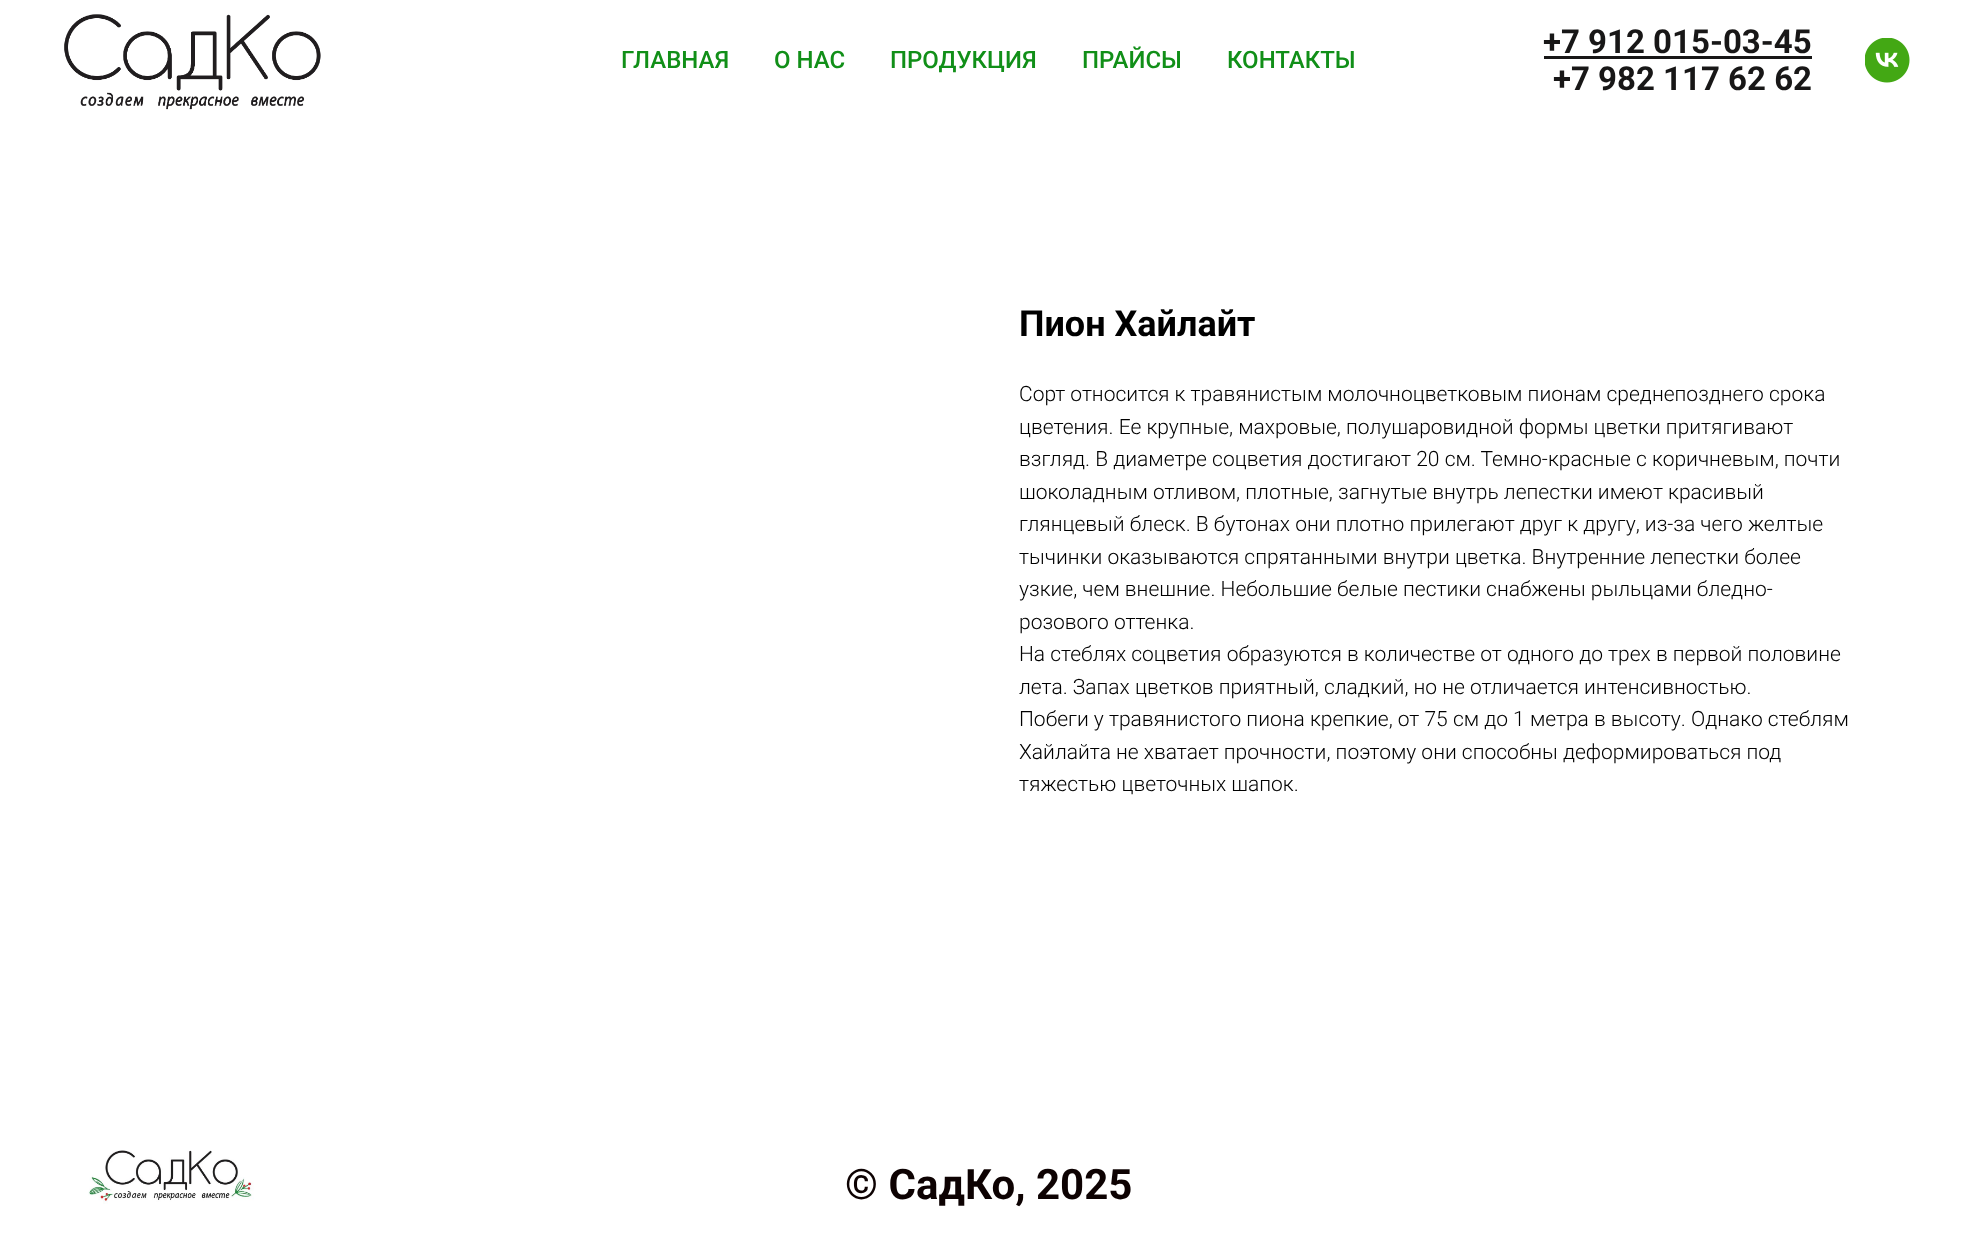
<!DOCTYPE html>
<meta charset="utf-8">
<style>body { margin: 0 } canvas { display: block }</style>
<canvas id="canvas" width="1976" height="1260"></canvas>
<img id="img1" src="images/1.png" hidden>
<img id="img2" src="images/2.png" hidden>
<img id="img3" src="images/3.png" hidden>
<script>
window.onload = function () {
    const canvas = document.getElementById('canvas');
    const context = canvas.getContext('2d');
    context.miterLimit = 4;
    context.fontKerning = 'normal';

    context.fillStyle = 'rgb(255, 255, 255)';
    context.fillRect(0, 0, 1976, 1260);
    context.drawImage(document.getElementById('img1'), 64, 14, 257, 96);
    context.fillStyle = 'rgb(24, 23, 23)';
    context.fillRect(1544, 56, 268, 3);
    context.drawImage(document.getElementById('img2'), 1865, 38, 45, 45);
    context.drawImage(document.getElementById('img3'), 88, 1150, 166, 54);
    context.font = '500 24px Roboto';
    context.fillStyle = 'rgb(17, 143, 24)';
    context.fillText('ГЛАВНАЯ', 621, 68);
    context.fillText('О НАС', 774, 68);
    context.fillText('ПРОДУКЦИЯ', 890, 68);
    context.fillText('ПРАЙСЫ', 1082, 68);
    context.fillText('КОНТАКТЫ', 1227, 68);
    context.font = 'bold 33px Roboto';
    context.fillStyle = 'rgb(24, 23, 23)';
    context.fillText('+7 912 015-03-45', 1543, 53);
    context.fillText('+7 982 117 62 62', 1553, 90);
    context.font = 'bold 36px Roboto';
    context.fillStyle = 'rgb(0, 0, 0)';
    context.fillText('Пион Хайлайт', 1019, 336);
    context.font = '300 21px Roboto';
    context.fillText('Сорт относится к травянистым молочноцветковым пионам среднепозднего срока', 1019, 401);
    context.fillText('цветения. Ее крупные, махровые, полушаровидной формы цветки притягивают', 1019, 434);
    context.fillText('взгляд. В диаметре соцветия достигают 20 см. Темно-красные с коричневым, почти', 1019, 466);
    context.fillText('шоколадным отливом, плотные, загнутые внутрь лепестки имеют красивый', 1019, 499);
    context.fillText('глянцевый блеск. В бутонах они плотно прилегают друг к другу, из-за чего желтые', 1019, 531);
    context.fillText('тычинки оказываются спрятанными внутри цветка. Внутренние лепестки более', 1019, 564);
    context.fillText('узкие, чем внешние. Небольшие белые пестики снабжены рыльцами бледно-', 1019, 596);
    context.fillText('розового оттенка.', 1019, 629);
    context.fillText('На стеблях соцветия образуются в количестве от одного до трех в первой половине', 1019, 661);
    context.fillText('лета. Запах цветков приятный, сладкий, но не отличается интенсивностью.', 1019, 694);
    context.fillText('Побеги у травянистого пиона крепкие, от 75 см до 1 метра в высоту. Однако стеблям', 1019, 726);
    context.fillText('Хайлайта не хватает прочности, поэтому они способны деформироваться под', 1019, 759);
    context.fillText('тяжестью цветочных шапок.', 1019, 791);
    context.font = 'bold 42px Roboto';
    context.fillStyle = 'rgb(13, 2, 2)';
    context.fillText('© СадКо, 2025', 845, 1199);
};
</script>
